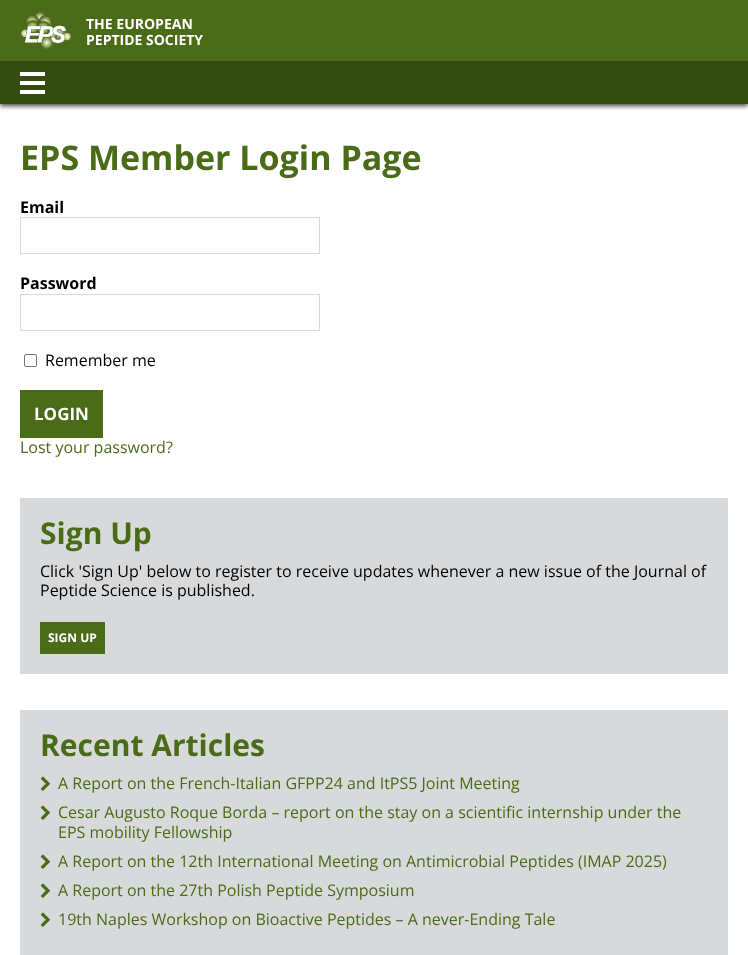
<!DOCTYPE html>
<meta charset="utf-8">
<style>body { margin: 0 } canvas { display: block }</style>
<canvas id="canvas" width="748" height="955"></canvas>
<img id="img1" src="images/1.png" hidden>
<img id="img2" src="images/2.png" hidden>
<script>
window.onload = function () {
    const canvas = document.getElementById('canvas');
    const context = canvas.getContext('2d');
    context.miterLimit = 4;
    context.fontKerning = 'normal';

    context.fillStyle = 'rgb(255, 255, 255)';
    context.fillRect(0, 0, 748, 955);
    context.fillStyle = 'rgba(0, 0, 0, 0.75)';
    context.filter = 'blur(2.5px)';
    context.beginPath();
    context.rect(0, 2, 748, 104);
    context.fill();
    context.filter = 'none';
    context.fillStyle = 'rgb(74, 107, 24)';
    context.fillRect(0, 0, 748, 61);
    context.drawImage(document.getElementById('img1'), 21, 11, 50, 39);
    context.fillStyle = 'rgb(52, 75, 17)';
    context.fillRect(0, 61, 748, 43);
    context.fillStyle = 'rgb(255, 255, 255)';
    context.fillRect(20, 81, 25, 4);
    context.fillRect(20, 72, 25, 4);
    context.fillRect(20, 90, 25, 4);
    context.strokeStyle = 'rgb(216, 217, 218)';
    context.strokeRect(20.5, 217.5, 299, 36);
    context.strokeRect(20.5, 294.5, 299, 36);
    context.beginPath();
    context.roundRect(24.5, 354.5, 12, 12, 1.5);
    context.strokeStyle = 'rgb(118, 118, 118)';
    context.stroke();
    context.fillStyle = 'rgb(74, 107, 24)';
    context.fillRect(20, 390, 83, 48);
    context.fillStyle = 'rgb(216, 217, 218)';
    context.fillRect(20, 498, 708, 176);
    context.fillStyle = 'rgb(74, 107, 24)';
    context.fillRect(40, 622, 65, 32);
    context.fillStyle = 'rgb(216, 217, 218)';
    context.fillRect(20, 710, 708, 245);
    context.drawImage(document.getElementById('img2'), 40, 776, 10, 15);
    context.drawImage(document.getElementById('img2'), 40, 805, 10, 15);
    context.drawImage(document.getElementById('img2'), 40, 854, 10, 15);
    context.drawImage(document.getElementById('img2'), 40, 883, 10, 15);
    context.drawImage(document.getElementById('img2'), 40, 912, 10, 15);
    context.font = 'bold 14px Open Sans';
    context.fillStyle = 'rgb(255, 255, 255)';
    context.fillText('THE EUROPEAN', 86, 29);
    context.fillText('PEPTIDE SOCIETY', 86, 45);
    context.font = 'bold 34px Open Sans';
    context.fillStyle = 'rgb(74, 107, 24)';
    context.fillText('EPS Member Login Page', 20, 170);
    context.font = 'bold 16px Open Sans';
    context.fillStyle = 'rgb(0, 0, 0)';
    context.fillText('Email', 20, 213);
    context.fillText('Password', 20, 289);
    context.font = '16px Open Sans';
    context.fillText('Remember me', 45, 366);
    context.font = 'bold 17px Open Sans';
    context.fillStyle = 'rgb(255, 255, 255)';
    context.fillText('LOGIN', 34, 420);
    context.font = '16px Open Sans';
    context.fillStyle = 'rgb(74, 107, 24)';
    context.fillText('Lost your password?', 20, 453);
    context.font = 'bold 30px Open Sans';
    context.fillText('Sign Up', 40, 544);
    context.font = '16px Open Sans';
    context.fillStyle = 'rgb(0, 0, 0)';
    context.fillText('Click \'Sign Up\' below to register to receive updates whenever a new issue of the Journal of', 40, 577);
    context.fillText('Peptide Science is published.', 40, 596);
    context.font = 'bold 12px Open Sans';
    context.fillStyle = 'rgb(255, 255, 255)';
    context.fillText('SIGN UP', 48, 642);
    context.font = 'bold 30px Open Sans';
    context.fillStyle = 'rgb(74, 107, 24)';
    context.fillText('Recent Articles', 40, 756);
    context.font = '16px Open Sans';
    context.fillText('A Report on the French-Italian GFPP24 and ItPS5 Joint Meeting', 58, 789);
    context.fillText('Cesar Augusto Roque Borda – report on the stay on a scientific internship under the', 58, 818);
    context.fillText('EPS mobility Fellowship', 58, 838);
    context.fillText('A Report on the 12th International Meeting on Antimicrobial Peptides (IMAP 2025)', 58, 867);
    context.fillText('A Report on the 27th Polish Peptide Symposium', 58, 896);
    context.fillText('19th Naples Workshop on Bioactive Peptides – A never-Ending Tale', 58, 925);
};
</script>
